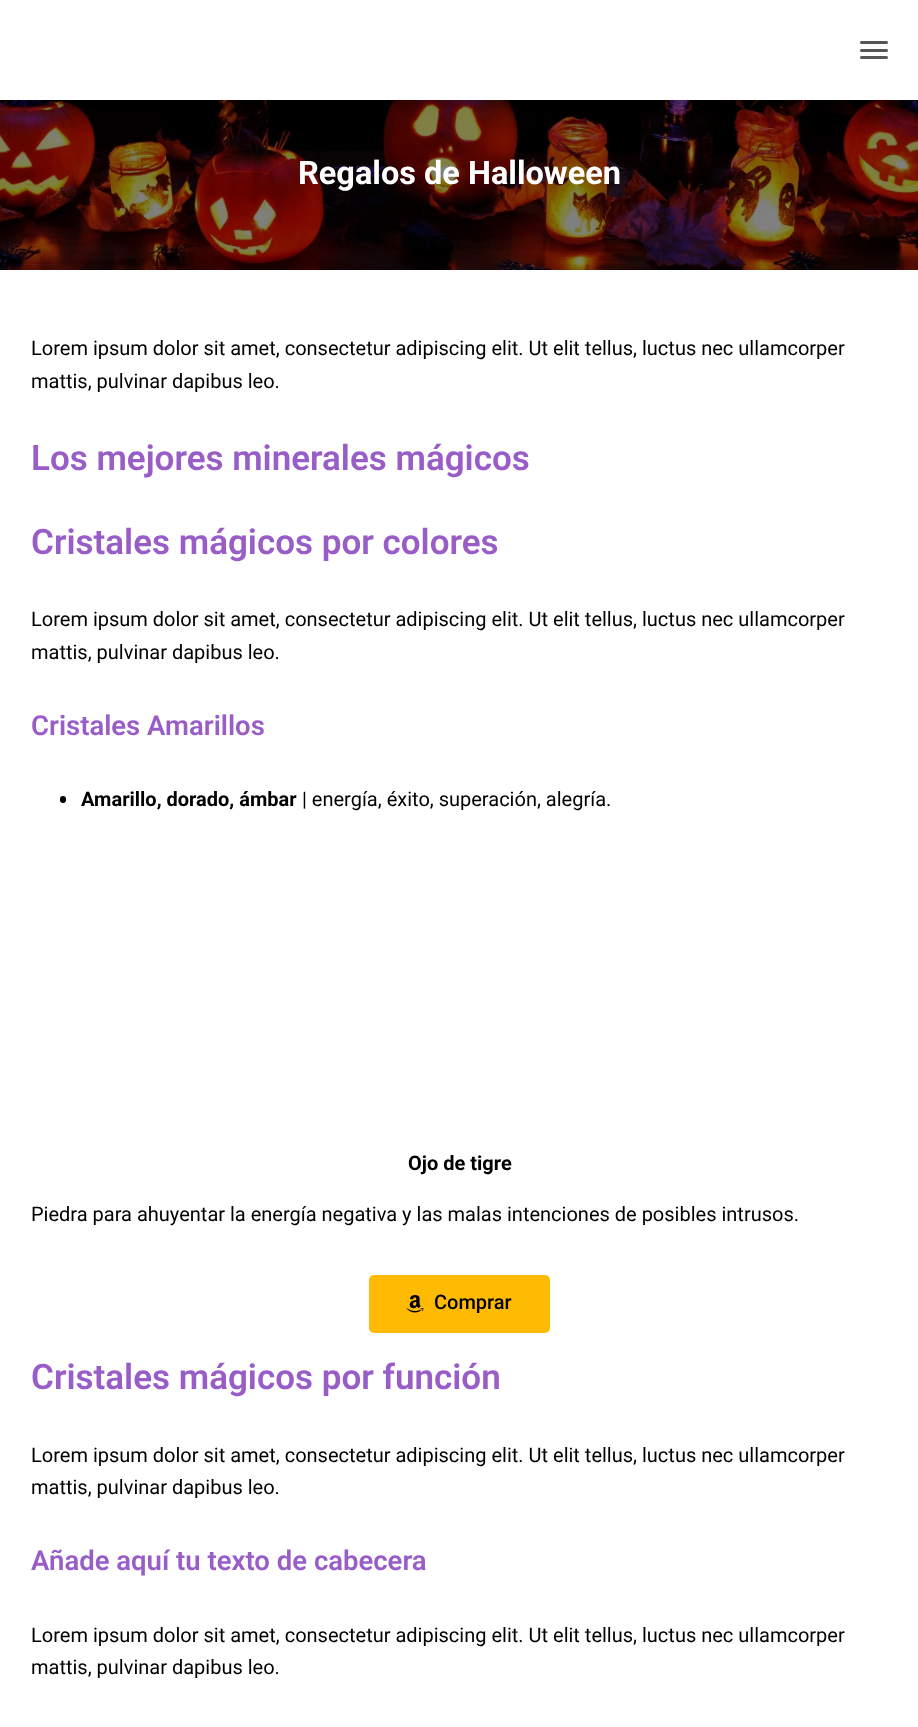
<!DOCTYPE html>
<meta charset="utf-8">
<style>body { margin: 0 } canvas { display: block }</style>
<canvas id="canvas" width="918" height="1727"></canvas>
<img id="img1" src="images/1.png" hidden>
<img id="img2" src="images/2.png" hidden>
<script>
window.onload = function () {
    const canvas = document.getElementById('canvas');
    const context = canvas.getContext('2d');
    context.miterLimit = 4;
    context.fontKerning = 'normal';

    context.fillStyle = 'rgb(255, 255, 255)';
    context.fillRect(0, 0, 918, 1727);
    context.drawImage(document.getElementById('img1'), 0, 100, 918, 170);
    context.fillStyle = 'rgba(0, 0, 0, 0.1)';
    context.filter = 'blur(3px)';
    context.beginPath();
    context.rect(3, 8, 913, 95);
    context.fill();
    context.filter = 'none';
    context.fillStyle = 'rgba(0, 0, 0, 0.12)';
    context.filter = 'blur(6px)';
    context.beginPath();
    context.rect(0, 1, 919, 100);
    context.fill();
    context.filter = 'none';
    context.fillStyle = 'rgba(0, 0, 0, 0.42)';
    context.filter = 'blur(6px)';
    context.beginPath();
    context.rect(8, 9, 903, 85);
    context.fill();
    context.filter = 'none';
    context.fillStyle = 'rgb(255, 255, 255)';
    context.fillRect(0, 0, 918, 100);
    context.fillStyle = 'rgb(85, 85, 85)';
    context.beginPath();
    context.roundRect(860, 41, 28, 3, 1.5);
    context.fill();
    context.beginPath();
    context.roundRect(860, 49, 28, 3, 1.5);
    context.fill();
    context.beginPath();
    context.roundRect(860, 56, 28, 3, 1.5);
    context.fill();
    context.fillStyle = 'rgb(0, 0, 0)';
    context.beginPath();
    context.roundRect(60, 796, 6, 7, 3);
    context.fill();
    context.fillStyle = 'rgb(255, 187, 3)';
    context.beginPath();
    context.roundRect(369, 1275, 181, 58, 5);
    context.fill();
    context.drawImage(document.getElementById('img2'), 406, 1295, 18, 18);
    context.font = 'bold 32.5px Roboto';
    context.fillStyle = 'rgb(255, 255, 255)';
    context.fillText('Regalos de Halloween', 298, 184);
    context.font = '20px Roboto';
    context.fillStyle = 'rgb(0, 0, 0)';
    context.fillText('Lorem ipsum dolor sit amet, consectetur adipiscing elit. Ut elit tellus, luctus nec ullamcorper', 31, 355);
    context.fillText('mattis, pulvinar dapibus leo.', 31, 388);
    context.font = '600 35px Roboto';
    context.fillStyle = 'rgb(153, 93, 200)';
    context.fillText('Los mejores minerales mágicos', 31, 470);
    context.fillText('Cristales mágicos por colores', 31, 554);
    context.font = '20px Roboto';
    context.fillStyle = 'rgb(0, 0, 0)';
    context.fillText('Lorem ipsum dolor sit amet, consectetur adipiscing elit. Ut elit tellus, luctus nec ullamcorper', 31, 626);
    context.fillText('mattis, pulvinar dapibus leo.', 31, 659);
    context.font = '600 27.5px Roboto';
    context.fillStyle = 'rgb(153, 93, 200)';
    context.fillText('Cristales Amarillos', 31, 735);
    context.font = 'bold 20px Roboto';
    context.fillStyle = 'rgb(0, 0, 0)';
    context.fillText('Amarillo, dorado, ámbar', 81, 806);
    context.font = '20px Roboto';
    context.fillText('| energía, éxito, superación, alegría.', 302, 806);
    context.font = 'bold 20px Roboto';
    context.fillText('Ojo de tigre', 408, 1170);
    context.font = '20px Roboto';
    context.fillText('Piedra para ahuyentar la energía negativa y las malas intenciones de posibles intrusos.', 31, 1221);
    context.font = '500 20px Roboto';
    context.fillText('Comprar', 434, 1309);
    context.font = '600 35px Roboto';
    context.fillStyle = 'rgb(153, 93, 200)';
    context.fillText('Cristales mágicos por función', 31, 1389);
    context.font = '20px Roboto';
    context.fillStyle = 'rgb(0, 0, 0)';
    context.fillText('Lorem ipsum dolor sit amet, consectetur adipiscing elit. Ut elit tellus, luctus nec ullamcorper', 31, 1462);
    context.fillText('mattis, pulvinar dapibus leo.', 31, 1494);
    context.font = '600 27.5px Roboto';
    context.fillStyle = 'rgb(153, 93, 200)';
    context.fillText('Añade aquí tu texto de cabecera', 31, 1570);
    context.font = '20px Roboto';
    context.fillStyle = 'rgb(0, 0, 0)';
    context.fillText('Lorem ipsum dolor sit amet, consectetur adipiscing elit. Ut elit tellus, luctus nec ullamcorper', 31, 1642);
    context.fillText('mattis, pulvinar dapibus leo.', 31, 1674);
};
</script>
